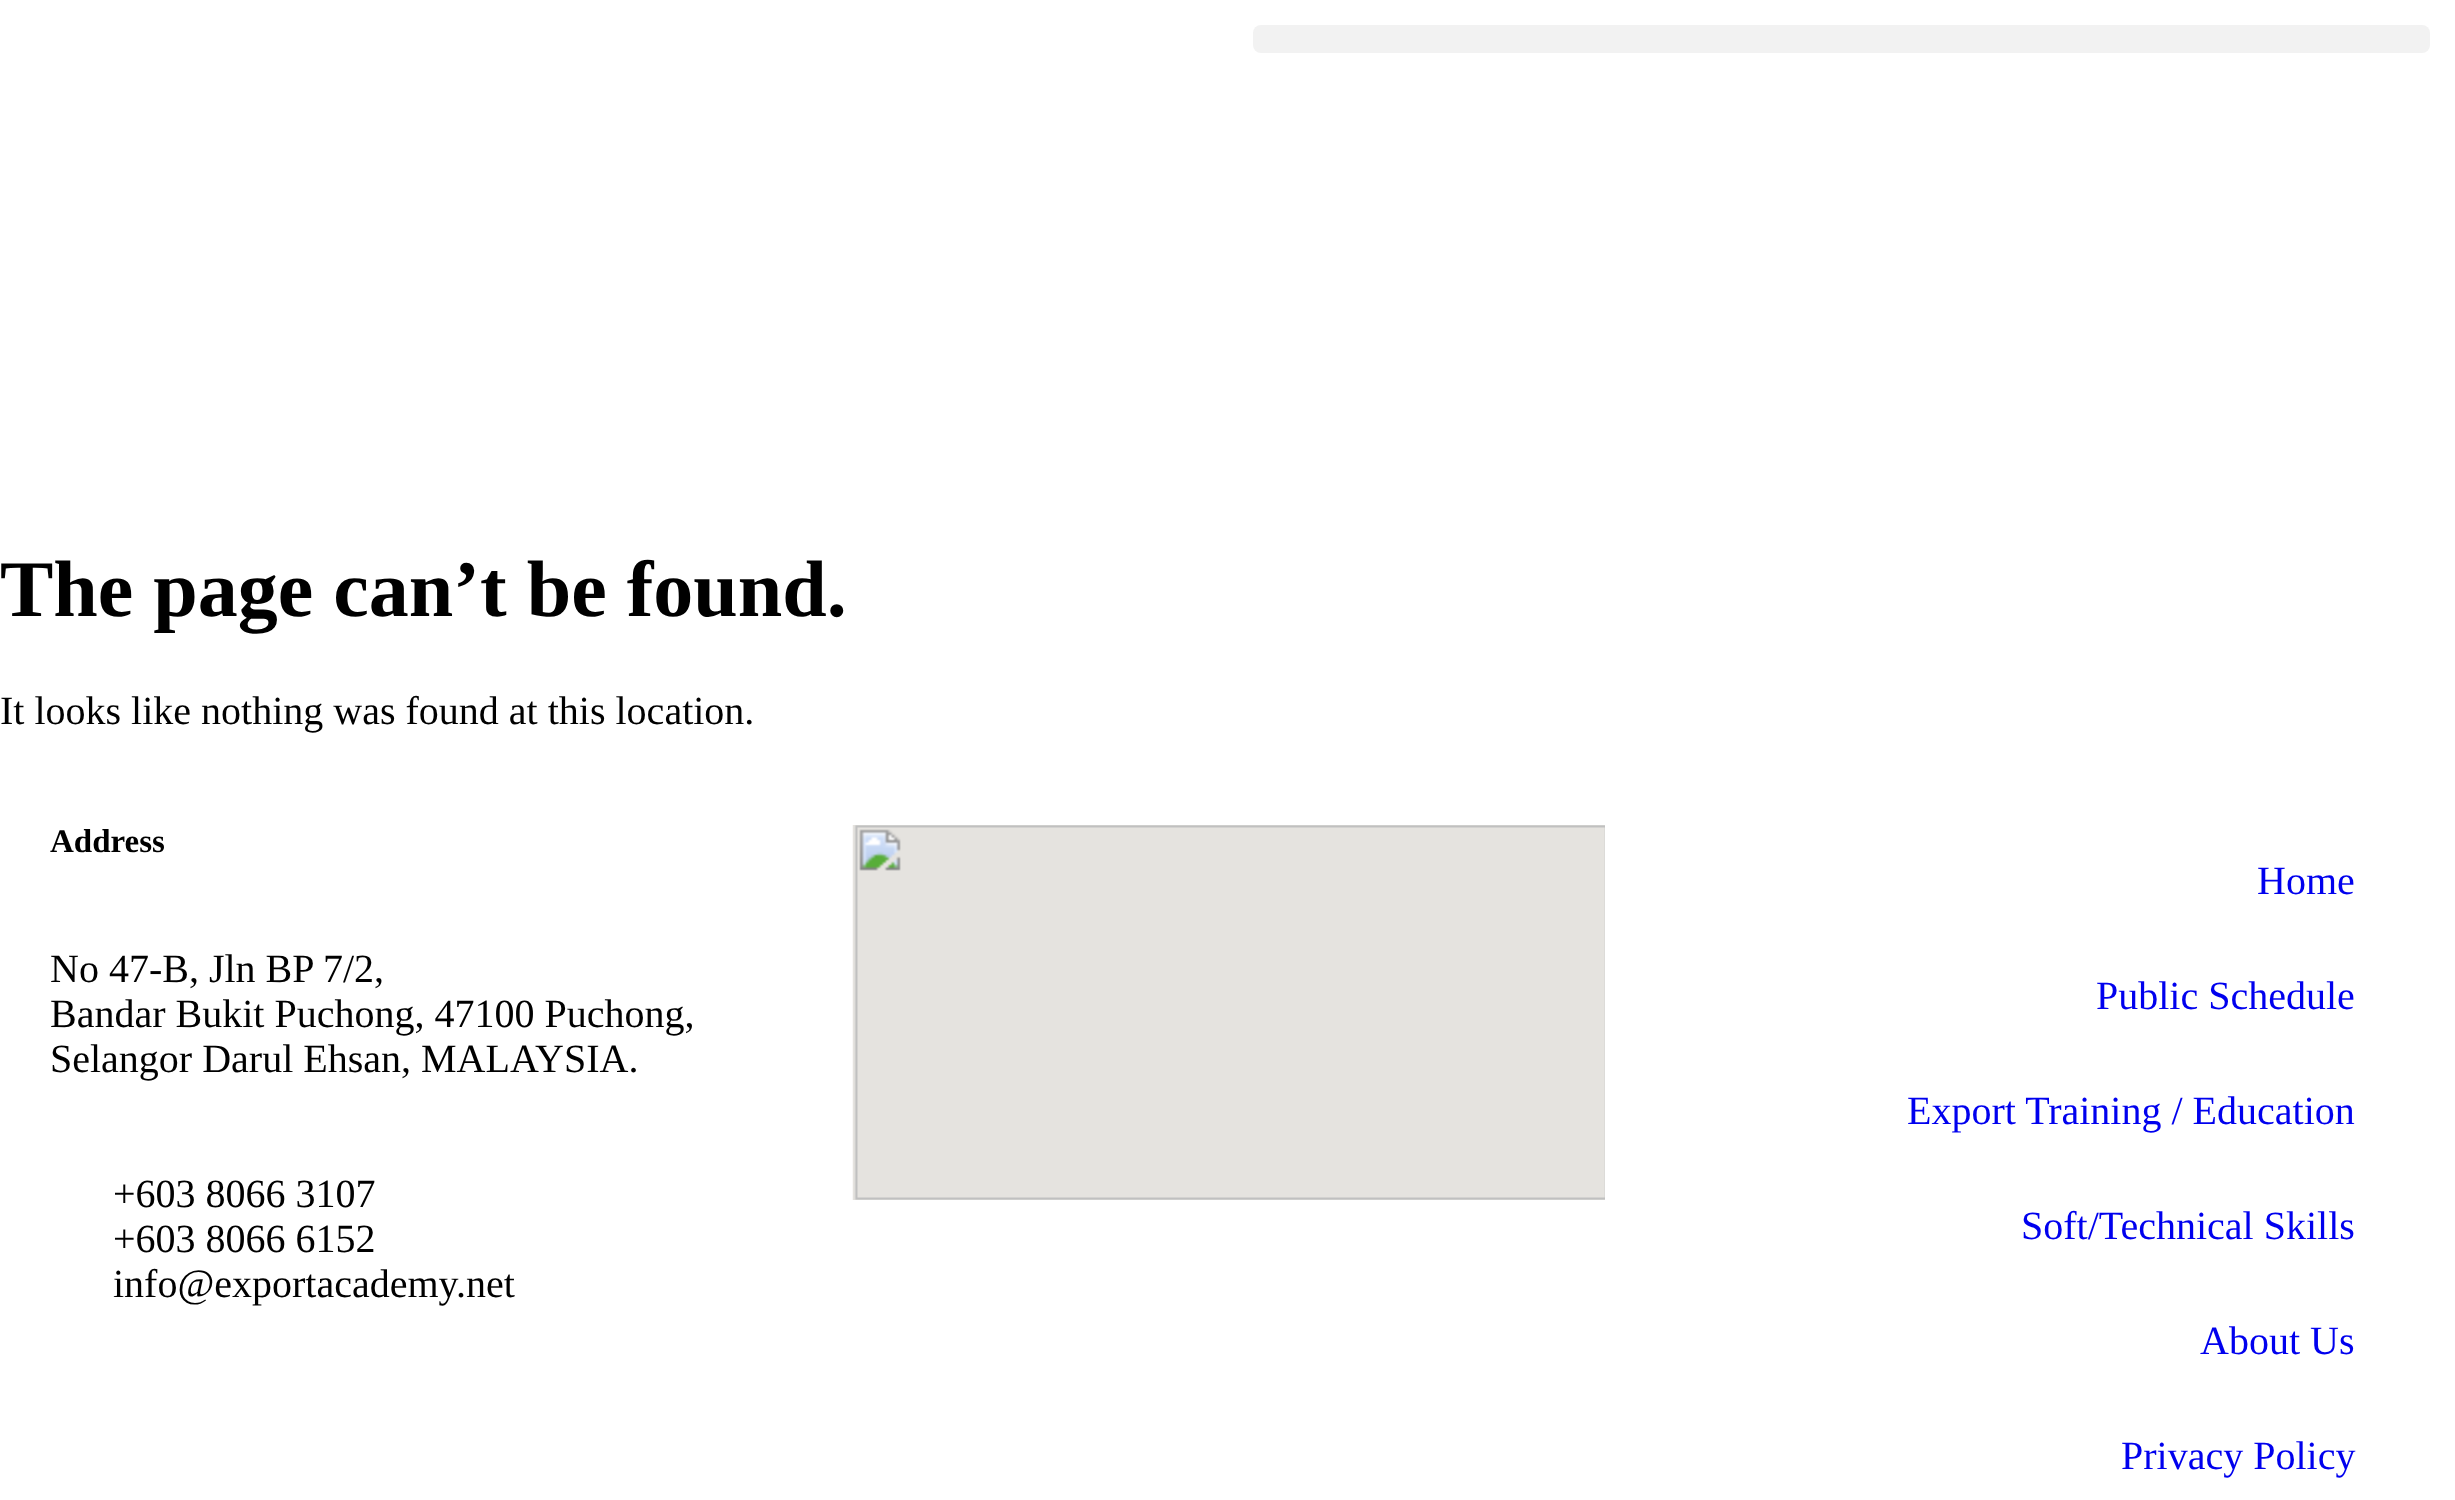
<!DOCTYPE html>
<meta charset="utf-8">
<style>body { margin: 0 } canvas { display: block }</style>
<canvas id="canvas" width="2455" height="1500"></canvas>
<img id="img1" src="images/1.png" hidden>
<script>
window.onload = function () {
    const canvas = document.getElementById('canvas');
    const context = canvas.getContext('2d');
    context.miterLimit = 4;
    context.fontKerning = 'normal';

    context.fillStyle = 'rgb(255, 255, 255)';
    context.fillRect(0, 0, 2455, 1500);
    context.fillStyle = 'rgb(242, 242, 242)';
    context.beginPath();
    context.roundRect(1253, 25, 1177, 28, 8);
    context.fill();
    context.drawImage(document.getElementById('img1'), 852, 825, 753, 375);
    context.font = 'bold 80px Liberation Serif';
    context.fillStyle = 'rgb(0, 0, 0)';
    context.fillText('The page can’t be found.', 0, 616);
    context.font = '40px Liberation Serif';
    context.fillText('It looks like nothing was found at this location.', 0, 724);
    context.font = 'bold 33px Liberation Serif';
    context.fillText('Address', 50, 852);
    context.font = '40px Liberation Serif';
    context.fillText('No 47-B, Jln BP 7/2,', 50, 982);
    context.fillText('Bandar Bukit Puchong, 47100 Puchong,', 50, 1027);
    context.fillText('Selangor Darul Ehsan, MALAYSIA.', 50, 1072);
    context.fillText('+603 8066 3107', 113, 1207);
    context.fillText('+603 8066 6152', 113, 1252);
    context.fillText('info@exportacademy.net', 113, 1297);
    context.fillStyle = 'rgb(0, 0, 238)';
    context.fillText('Home', 2257, 894);
    context.fillText('Public Schedule', 2096, 1009);
    context.fillText('Export Training / Education', 1907, 1124);
    context.fillText('Soft/Technical Skills', 2021, 1239);
    context.fillText('About Us', 2200, 1354);
    context.fillText('Privacy Policy', 2121, 1469);
};
</script>
